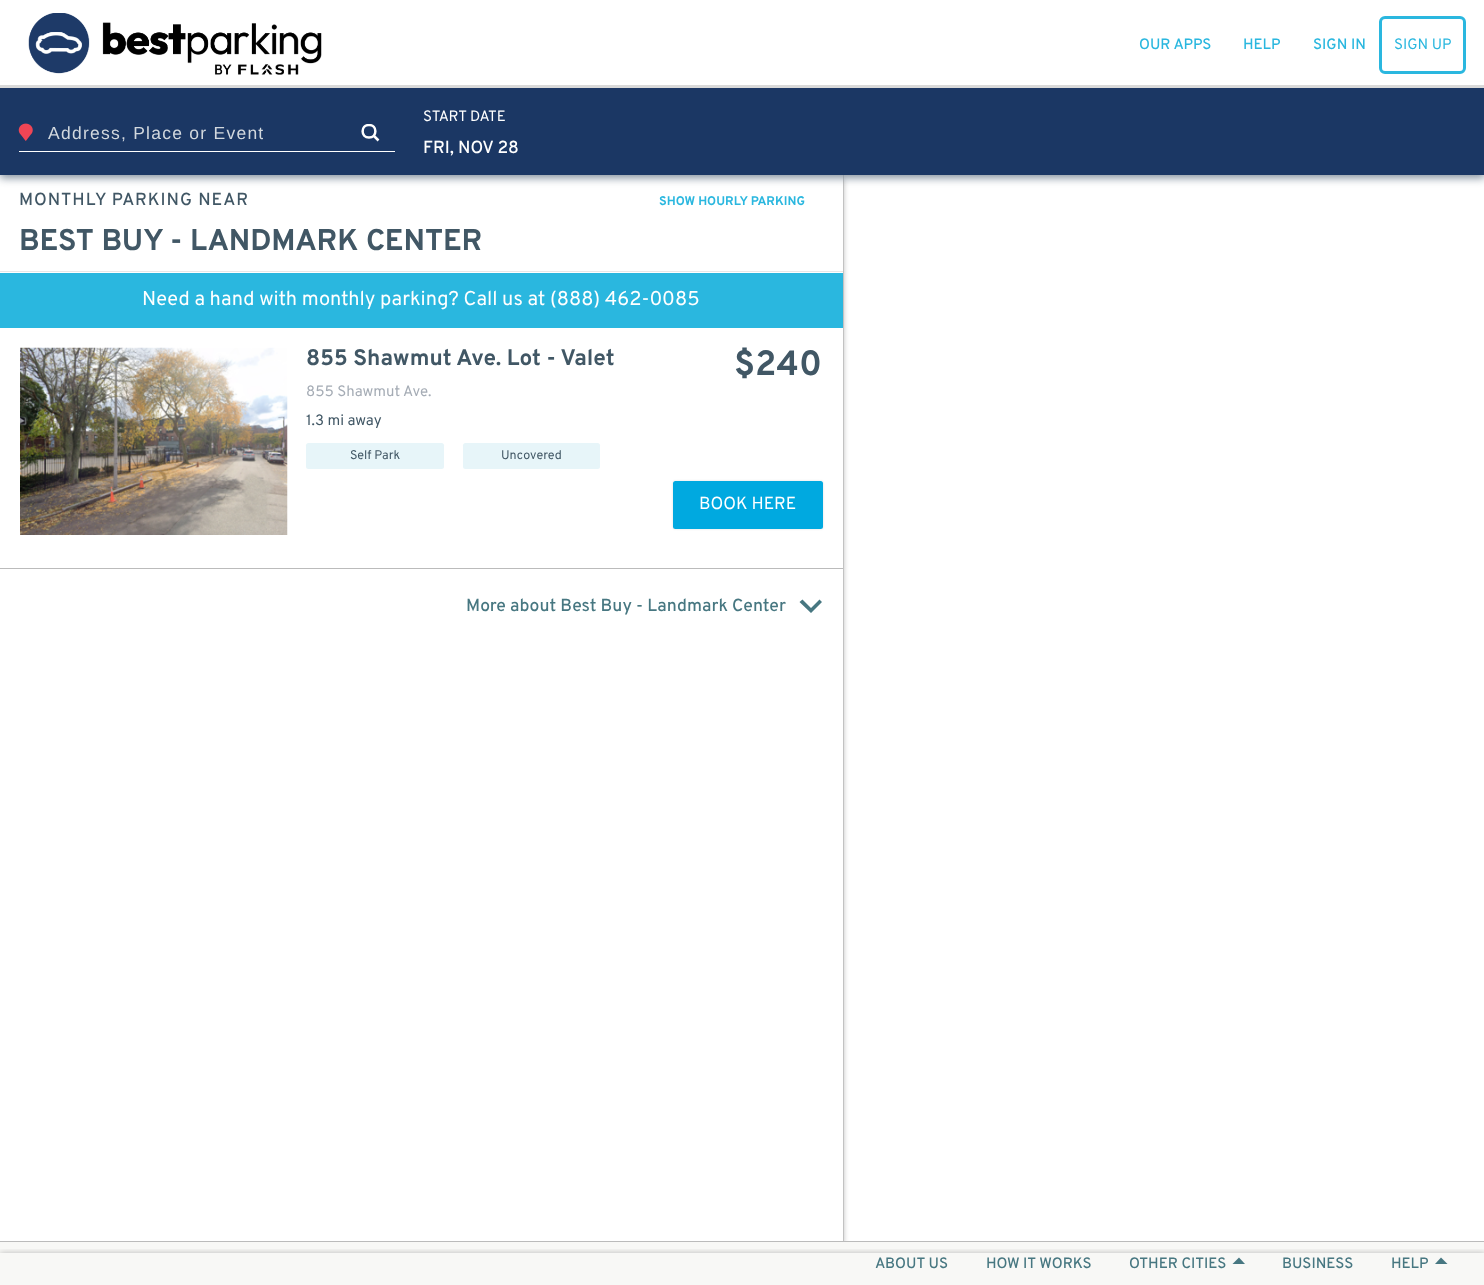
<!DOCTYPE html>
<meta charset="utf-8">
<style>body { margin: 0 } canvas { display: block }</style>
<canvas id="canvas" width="1484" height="1285"></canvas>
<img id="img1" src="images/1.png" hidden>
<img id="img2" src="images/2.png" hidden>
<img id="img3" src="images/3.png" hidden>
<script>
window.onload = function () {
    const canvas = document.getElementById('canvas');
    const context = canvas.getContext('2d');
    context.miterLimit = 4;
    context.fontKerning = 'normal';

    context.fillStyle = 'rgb(255, 255, 255)';
    context.fillRect(0, 0, 1484, 1285);
    context.save();
    context.beginPath();
    context.moveTo(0, 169);
    context.lineTo(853, 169);
    context.lineTo(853, 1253);
    context.lineTo(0, 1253);
    context.closePath();
    context.moveTo(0, 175);
    context.lineTo(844, 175);
    context.lineTo(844, 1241);
    context.lineTo(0, 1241);
    context.closePath();
    context.clip('evenodd');
    context.fillStyle = 'rgba(0, 0, 0, 0.24)';
    context.filter = 'blur(2.5px)';
    context.beginPath();
    context.rect(0, 178, 844, 1066);
    context.fill();
    context.filter = 'none';
    context.restore();
    context.fillStyle = 'rgba(0, 0, 0, 0.24)';
    context.fillRect(843, 175, 1, 1066);
    context.fillStyle = 'rgb(132, 145, 158)';
    context.filter = 'blur(4px)';
    context.beginPath();
    context.rect(0, 90, 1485, 88);
    context.fill();
    context.filter = 'none';
    context.fillStyle = 'rgb(255, 255, 255)';
    context.fillRect(0, 82, 1484, 3);
    context.fillStyle = 'rgb(217, 217, 217)';
    context.fillRect(0, 85, 1484, 3);
    context.drawImage(document.getElementById('img1'), 28, 13, 294, 62);
    context.beginPath();
    context.roundRect(1380.5, 17.5, 84, 55, 4.5);
    context.strokeStyle = 'rgb(42, 183, 223)';
    context.lineWidth = 3;
    context.stroke();
    context.fillStyle = 'rgb(27, 55, 100)';
    context.fillRect(0, 88, 1484, 87);
    context.fillStyle = 'rgb(255, 255, 255)';
    context.fillRect(19, 151, 14, 1);
    context.drawImage(document.getElementById('img2'), 18, 123, 15, 18);
    context.save();
    context.beginPath();
    context.rect(361, 124, 19, 19);
    context.clip();
    context.beginPath();
    context.moveTo(378.5, 140.5);
    context.lineTo(374, 136);
    context.closePath();
    context.moveTo(369, 125);
    context.bezierCurveTo(377.5, 125, 377.5, 137.5, 369, 137.5);
    context.bezierCurveTo(360.5, 137.5, 360.5, 125, 369, 125);
    context.closePath();
    context.strokeStyle = 'rgb(255, 255, 255)';
    context.lineWidth = 2.5;
    context.lineCap = 'round';
    context.stroke();
    context.restore();
    context.fillRect(33, 151, 362, 1);
    context.fillStyle = 'rgb(232, 231, 231)';
    context.fillRect(0, 271, 843, 1);
    context.fillStyle = 'rgb(42, 183, 223)';
    context.fillRect(0, 273, 843, 55);
    context.fillStyle = 'rgb(187, 187, 187)';
    context.fillRect(0, 568, 843, 1);
    context.drawImage(document.getElementById('img3'), 20, 347, 268, 188);
    context.fillStyle = 'rgb(231, 245, 249)';
    context.beginPath();
    context.roundRect(306, 443, 138, 26, 2.5);
    context.fill();
    context.beginPath();
    context.roundRect(463, 443, 137, 26, 2.5);
    context.fill();
    context.fillStyle = 'rgba(0, 0, 0, 0.12)';
    context.filter = 'blur(1px)';
    context.beginPath();
    context.roundRect(673, 481, 150, 48, 2.5);
    context.fill();
    context.filter = 'none';
    context.fillStyle = 'rgb(0, 169, 224)';
    context.beginPath();
    context.roundRect(673, 481, 150, 48, 2.5);
    context.fill();
    context.fillStyle = 'rgb(71, 119, 129)';
    context.beginPath();
    context.moveTo(819.5, 599.5);
    context.lineTo(822, 602);
    context.lineTo(811, 613);
    context.lineTo(799.5, 602);
    context.lineTo(802.5, 599.5);
    context.lineTo(811, 608);
    context.closePath();
    context.fill();
    context.fillStyle = 'rgb(248, 248, 246)';
    context.fillRect(0, 1242, 1484, 43);
    context.fillStyle = 'rgb(187, 187, 187)';
    context.fillRect(0, 1241, 1484, 1);
    context.save();
    context.beginPath();
    context.rect(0, 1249, 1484, 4);
    context.clip();
    context.fillStyle = 'rgba(0, 0, 0, 0.25)';
    context.filter = 'blur(3px)';
    context.beginPath();
    context.rect(0, 1253, 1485, 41);
    context.fill();
    context.filter = 'none';
    context.restore();
    context.fillStyle = 'rgb(71, 119, 129)';
    context.beginPath();
    context.moveTo(1245, 1264);
    context.lineTo(1232.5, 1264);
    context.lineTo(1239, 1257.5);
    context.closePath();
    context.fill();
    context.beginPath();
    context.moveTo(1447.5, 1264);
    context.lineTo(1435, 1264);
    context.lineTo(1441, 1257.5);
    context.closePath();
    context.fill();
    context.font = '500 15px Overpass';
    context.fillStyle = 'rgb(42, 183, 223)';
    context.fillText('OUR APPS', 1139, 49);
    context.fillText('HELP', 1243, 49);
    context.fillText('SIGN IN', 1313, 49);
    context.font = '15px Overpass';
    context.fillText('SIGN UP', 1394, 49);
    context.letterSpacing = '1.25px';
    context.font = '17.5px Liberation Sans';
    context.fillStyle = 'rgb(210, 216, 222)';
    context.fillText('Address, Place or Event', 48, 139);
    context.letterSpacing = '0px';
    context.font = '15px Overpass';
    context.fillStyle = 'rgb(255, 255, 255)';
    context.fillText('START DATE', 423, 121);
    context.font = '500 17.5px Overpass';
    context.fillText('FRI, NOV 28', 423, 153);
    context.letterSpacing = '1px';
    context.fillStyle = 'rgb(65, 87, 101)';
    context.fillText('MONTHLY PARKING NEAR', 19, 205);
    context.letterSpacing = '0px';
    context.font = 'bold 12.5px Overpass';
    context.fillStyle = 'rgb(42, 183, 223)';
    context.fillText('SHOW HOURLY PARKING', 659, 205);
    context.font = 'bold 30px Overpass';
    context.fillStyle = 'rgb(65, 87, 101)';
    context.fillText('BEST BUY - LANDMARK CENTER', 19, 250);
    context.font = '20px Overpass';
    context.fillStyle = 'rgb(255, 255, 255)';
    context.fillText('Need a hand with monthly parking? Call us at (888) 462-0085', 142, 305);
    context.font = 'bold 22.5px Overpass';
    context.fillStyle = 'rgb(65, 87, 101)';
    context.fillText('855 Shawmut Ave. Lot - Valet', 306, 365);
    context.font = '15px Overpass';
    context.fillStyle = 'rgb(165, 172, 181)';
    context.fillText('855 Shawmut Ave.', 306, 396);
    context.fillStyle = 'rgb(65, 87, 101)';
    context.fillText('1.3 mi away', 306, 425);
    context.font = '12.5px Overpass';
    context.fillText('Self Park', 350, 459);
    context.fillText('Uncovered', 501, 459);
    context.font = 'bold 35px Overpass';
    context.fillText('$240', 734, 375);
    context.font = '17.5px Overpass';
    context.fillStyle = 'rgb(255, 255, 255)';
    context.fillText('BOOK HERE', 699, 509);
    context.font = '500 17.5px Overpass';
    context.fillStyle = 'rgb(71, 119, 129)';
    context.fillText('More about Best Buy - Landmark Center', 466, 611);
    context.font = '500 15px Overpass';
    context.fillText('ABOUT US', 875, 1268);
    context.fillText('HOW IT WORKS', 986, 1268);
    context.fillText('OTHER CITIES', 1129, 1268);
    context.fillText('BUSINESS', 1282, 1268);
    context.fillText('HELP', 1391, 1268);
};
</script>
